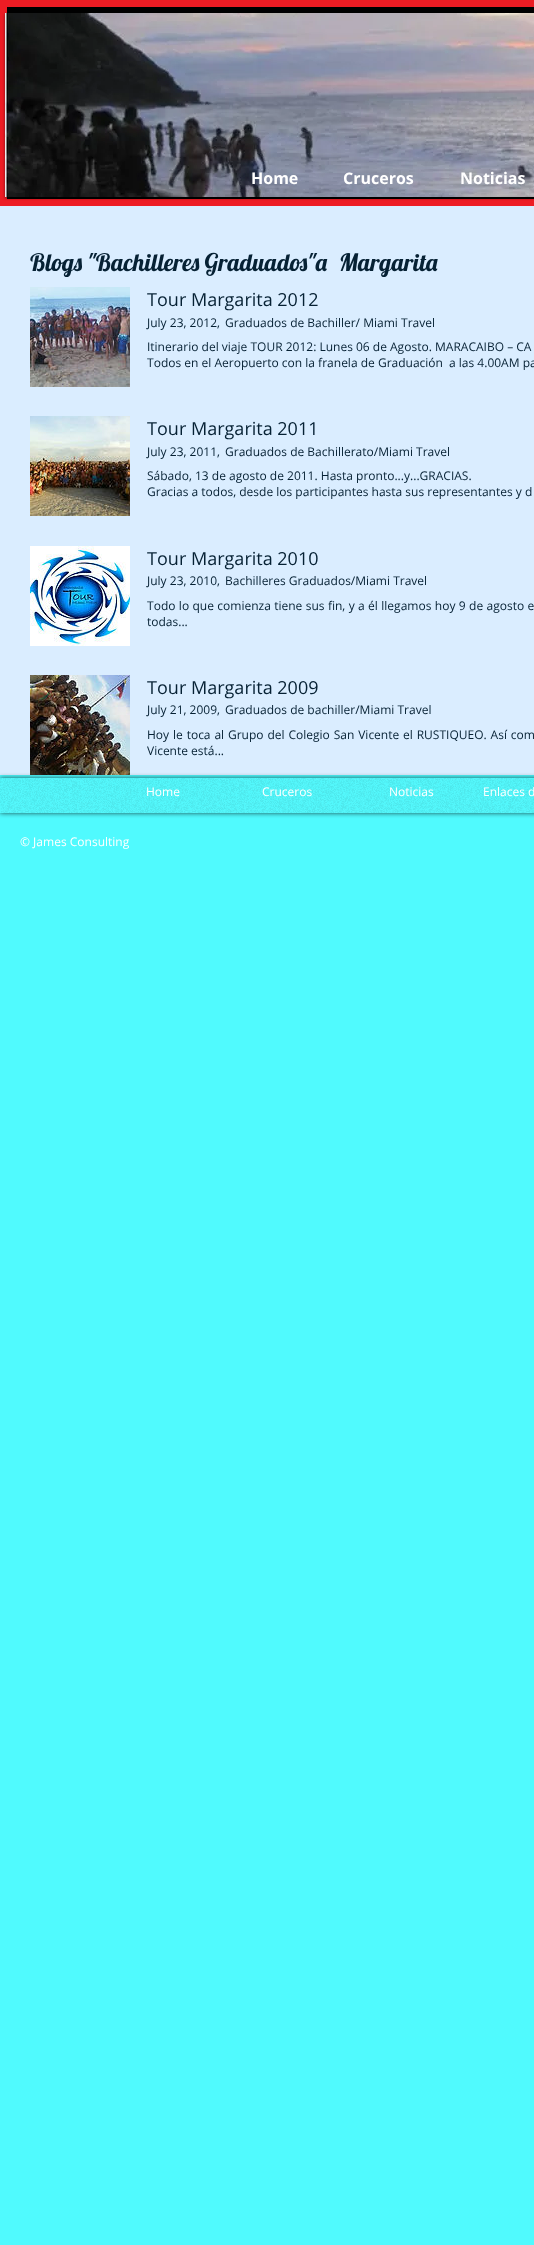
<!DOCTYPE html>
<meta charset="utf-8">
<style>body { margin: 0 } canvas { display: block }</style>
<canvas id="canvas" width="534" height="2245"></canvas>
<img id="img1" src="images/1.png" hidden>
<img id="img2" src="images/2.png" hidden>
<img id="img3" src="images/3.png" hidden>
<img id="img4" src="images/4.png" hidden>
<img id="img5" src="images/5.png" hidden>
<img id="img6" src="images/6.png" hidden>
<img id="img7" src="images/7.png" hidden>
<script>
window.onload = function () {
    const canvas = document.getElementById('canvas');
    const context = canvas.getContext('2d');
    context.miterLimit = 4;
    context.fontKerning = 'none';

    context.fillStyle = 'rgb(80, 250, 254)';
    context.fillRect(0, 0, 534, 2245);
    context.fillStyle = 'rgb(237, 28, 36)';
    context.fillRect(0, 0, 534, 206);
    context.fillStyle = 'rgb(0, 0, 0)';
    context.fillRect(7, 7, 527, 192);
    context.drawImage(document.getElementById('img1'), 183, 11, 351, 2);
    context.fillStyle = 'rgb(218, 237, 255)';
    context.fillRect(0, 206, 534, 569);
    context.fillStyle = 'rgba(0, 0, 0, 0.5)';
    context.filter = 'blur(1.5px)';
    context.beginPath();
    context.rect(5, 14, 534, 184);
    context.fill();
    context.filter = 'none';
    context.drawImage(document.getElementById('img2'), 5, 13, 529, 184);
    context.drawImage(document.getElementById('img3'), 30, 287, 100, 100);
    context.drawImage(document.getElementById('img4'), 30, 416, 100, 100);
    context.drawImage(document.getElementById('img5'), 30, 546, 100, 100);
    context.drawImage(document.getElementById('img6'), 30, 675, 100, 100);
    context.fillStyle = 'rgba(0, 0, 0, 0.7)';
    context.filter = 'blur(2.5px)';
    context.beginPath();
    context.rect(0, 778, 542, 35);
    context.fill();
    context.filter = 'none';
    context.fillStyle = 'rgb(82, 248, 252)';
    context.fillRect(0, 778, 534, 35);
    context.drawImage(document.getElementById('img7'), 0, 778, 534, 35);
    context.font = 'bold 16px Open Sans';
    context.fillStyle = 'rgb(255, 255, 255)';
    context.fillText('Home', 251, 184);
    context.fillText('Cruceros', 343, 184);
    context.fillText('Noticias', 460, 184);
    context.font = '24px Lobster';
    context.fillStyle = 'rgb(6, 33, 52)';
    context.fillText('Blogs "Bachilleres Graduados"a', 30, 271);
    context.fillText('Margarita', 339, 271);
    context.font = '18px Open Sans';
    context.fillText('Tour Margarita 2012', 147, 306);
    context.font = '12px Open Sans';
    context.fillText('July 23, 2012,', 147, 327);
    context.fillText('Graduados de Bachiller/ Miami Travel', 225, 327);
    context.fillText('Itinerario del viaje TOUR 2012: Lunes 06 de Agosto. MARACAIBO – CA', 147, 351);
    context.fillText('Todos en el Aeropuerto con la franela de Graduación', 147, 367);
    context.fillText('a las 4.00AM pa', 449, 367);
    context.font = '18px Open Sans';
    context.fillText('Tour Margarita 2011', 147, 435);
    context.font = '12px Open Sans';
    context.fillText('July 23, 2011,', 147, 456);
    context.fillText('Graduados de Bachillerato/Miami Travel', 225, 456);
    context.fillText('Sábado, 13 de agosto de 2011. Hasta pronto...y...GRACIAS.', 147, 480);
    context.fillText('Gracias a todos, desde los participantes hasta sus representantes y d', 147, 496);
    context.font = '18px Open Sans';
    context.fillText('Tour Margarita 2010', 147, 565);
    context.font = '12px Open Sans';
    context.fillText('July 23, 2010,', 147, 585);
    context.fillText('Bachilleres Graduados/Miami Travel', 225, 585);
    context.wordSpacing = '0.25px';
    context.fillText('Todo lo que comienza tiene sus fin, y a él llegamos hoy 9 de agosto e', 147, 610);
    context.wordSpacing = '0px';
    context.fillText('todas...', 147, 626);
    context.font = '18px Open Sans';
    context.fillText('Tour Margarita 2009', 147, 694);
    context.font = '12px Open Sans';
    context.fillText('July 21, 2009,', 147, 714);
    context.fillText('Graduados de bachiller/Miami Travel', 225, 714);
    context.wordSpacing = '0.75px';
    context.fillText('Hoy le toca al Grupo del Colegio San Vicente el RUSTIQUEO. Así com', 147, 739);
    context.wordSpacing = '0px';
    context.fillText('Vicente está...', 147, 755);
    context.fillStyle = 'rgb(255, 255, 255)';
    context.fillText('Home', 146, 796);
    context.fillText('Cruceros', 262, 796);
    context.fillText('Noticias', 389, 796);
    context.fillText('Enlaces d', 483, 796);
    context.fillText('© James Consulting', 20, 846);
};
</script>
